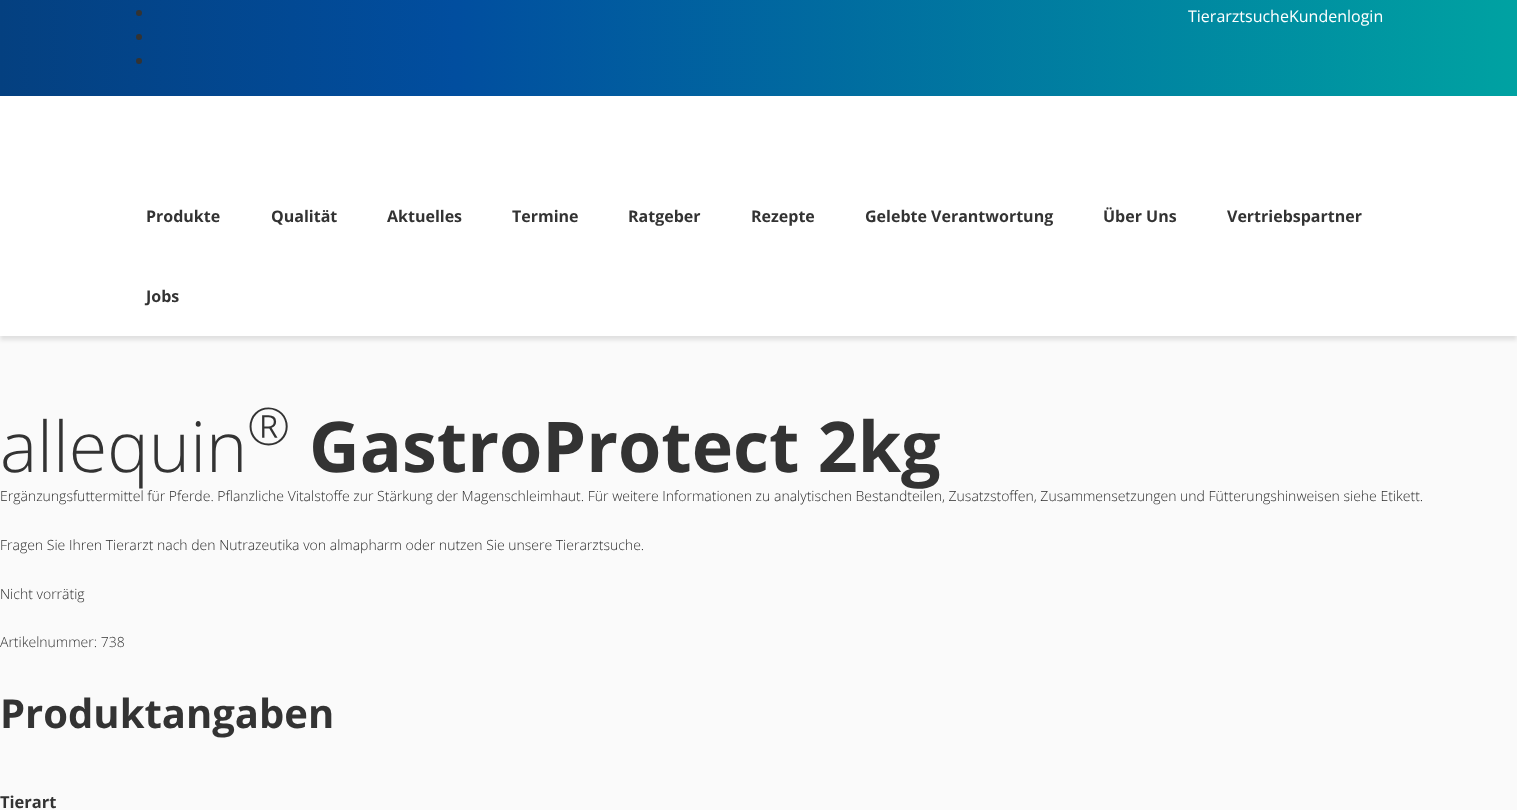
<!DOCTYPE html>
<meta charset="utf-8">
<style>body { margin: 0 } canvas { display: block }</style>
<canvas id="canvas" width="1517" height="810"></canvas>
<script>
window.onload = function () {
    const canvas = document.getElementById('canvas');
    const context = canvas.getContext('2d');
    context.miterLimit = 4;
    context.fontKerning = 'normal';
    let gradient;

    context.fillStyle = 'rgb(250, 250, 250)';
    context.fillRect(0, 0, 1517, 810);
    context.fillStyle = 'rgba(0, 0, 0, 0.1)';
    context.filter = 'blur(2px)';
    context.beginPath();
    context.rect(0, 4, 1517, 336);
    context.fill();
    context.filter = 'none';
    context.fillStyle = 'rgb(255, 255, 255)';
    context.fillRect(0, 96, 1517, 240);
    gradient = context.createLinearGradient(0, 48, 1517, 48);
    gradient.addColorStop(0, 'rgb(4, 64, 128)');
    gradient.addColorStop(0.3, 'rgb(1, 78, 159)');
    gradient.addColorStop(1, 'rgb(0, 162, 162)');
    context.fillStyle = gradient;
    context.fillRect(0, 0, 1517, 96);
    context.fillStyle = 'rgb(51, 51, 51)';
    context.beginPath();
    context.arc(139, 13, 3, 0, 2 * Math.PI);
    context.fill();
    context.beginPath();
    context.arc(139, 37, 3, 0, 2 * Math.PI);
    context.fill();
    context.beginPath();
    context.arc(139, 61, 3, 0, 2 * Math.PI);
    context.fill();
    context.font = '16px Open Sans';
    context.fillStyle = 'rgb(255, 255, 255)';
    context.fillText('Tierarztsuche', 1188, 22);
    context.fillText('Kundenlogin', 1289, 22);
    context.font = 'bold 16px Open Sans';
    context.fillStyle = 'rgb(51, 51, 51)';
    context.fillText('Produkte', 146, 222);
    context.fillText('Qualität', 271, 222);
    context.fillText('Aktuelles', 387, 222);
    context.fillText('Termine', 512, 222);
    context.fillText('Ratgeber', 628, 222);
    context.fillText('Rezepte', 751, 222);
    context.fillText('Gelebte Verantwortung', 865, 222);
    context.fillText('Über Uns', 1103, 222);
    context.fillText('Vertriebspartner', 1227, 222);
    context.fillText('Jobs', 146, 302);
    context.font = '300 70px Open Sans';
    context.fillText('allequin', 0, 472);
    context.font = '300 52px Open Sans';
    context.fillText('®', 247, 445);
    context.font = 'bold 70px Open Sans';
    context.fillText('GastroProtect 2kg', 309, 472);
    context.font = '300 14px Open Sans';
    context.fillStyle = 'rgb(44, 44, 44)';
    context.fillText('Ergänzungsfuttermittel für Pferde. Pflanzliche Vitalstoffe zur Stärkung der Magenschleimhaut. Für weitere Informationen zu analytischen Bestandteilen, Zusatzstoffen, Zusammensetzungen und Fütterungshinweisen siehe Etikett.', 0, 501);
    context.fillText('Fragen Sie Ihren Tierarzt nach den Nutrazeutika von almapharm oder nutzen Sie unsere Tierarztsuche.', 0, 550);
    context.fillText('Nicht vorrätig', 0, 599);
    context.fillStyle = 'rgb(51, 51, 51)';
    context.fillText('Artikelnummer: 738', 0, 647);
    context.font = 'bold 40px Open Sans';
    context.fillText('Produktangaben', 0, 728);
    context.font = 'bold 16.5px Open Sans';
    context.fillText('Tierart', 0, 808);
};
</script>
